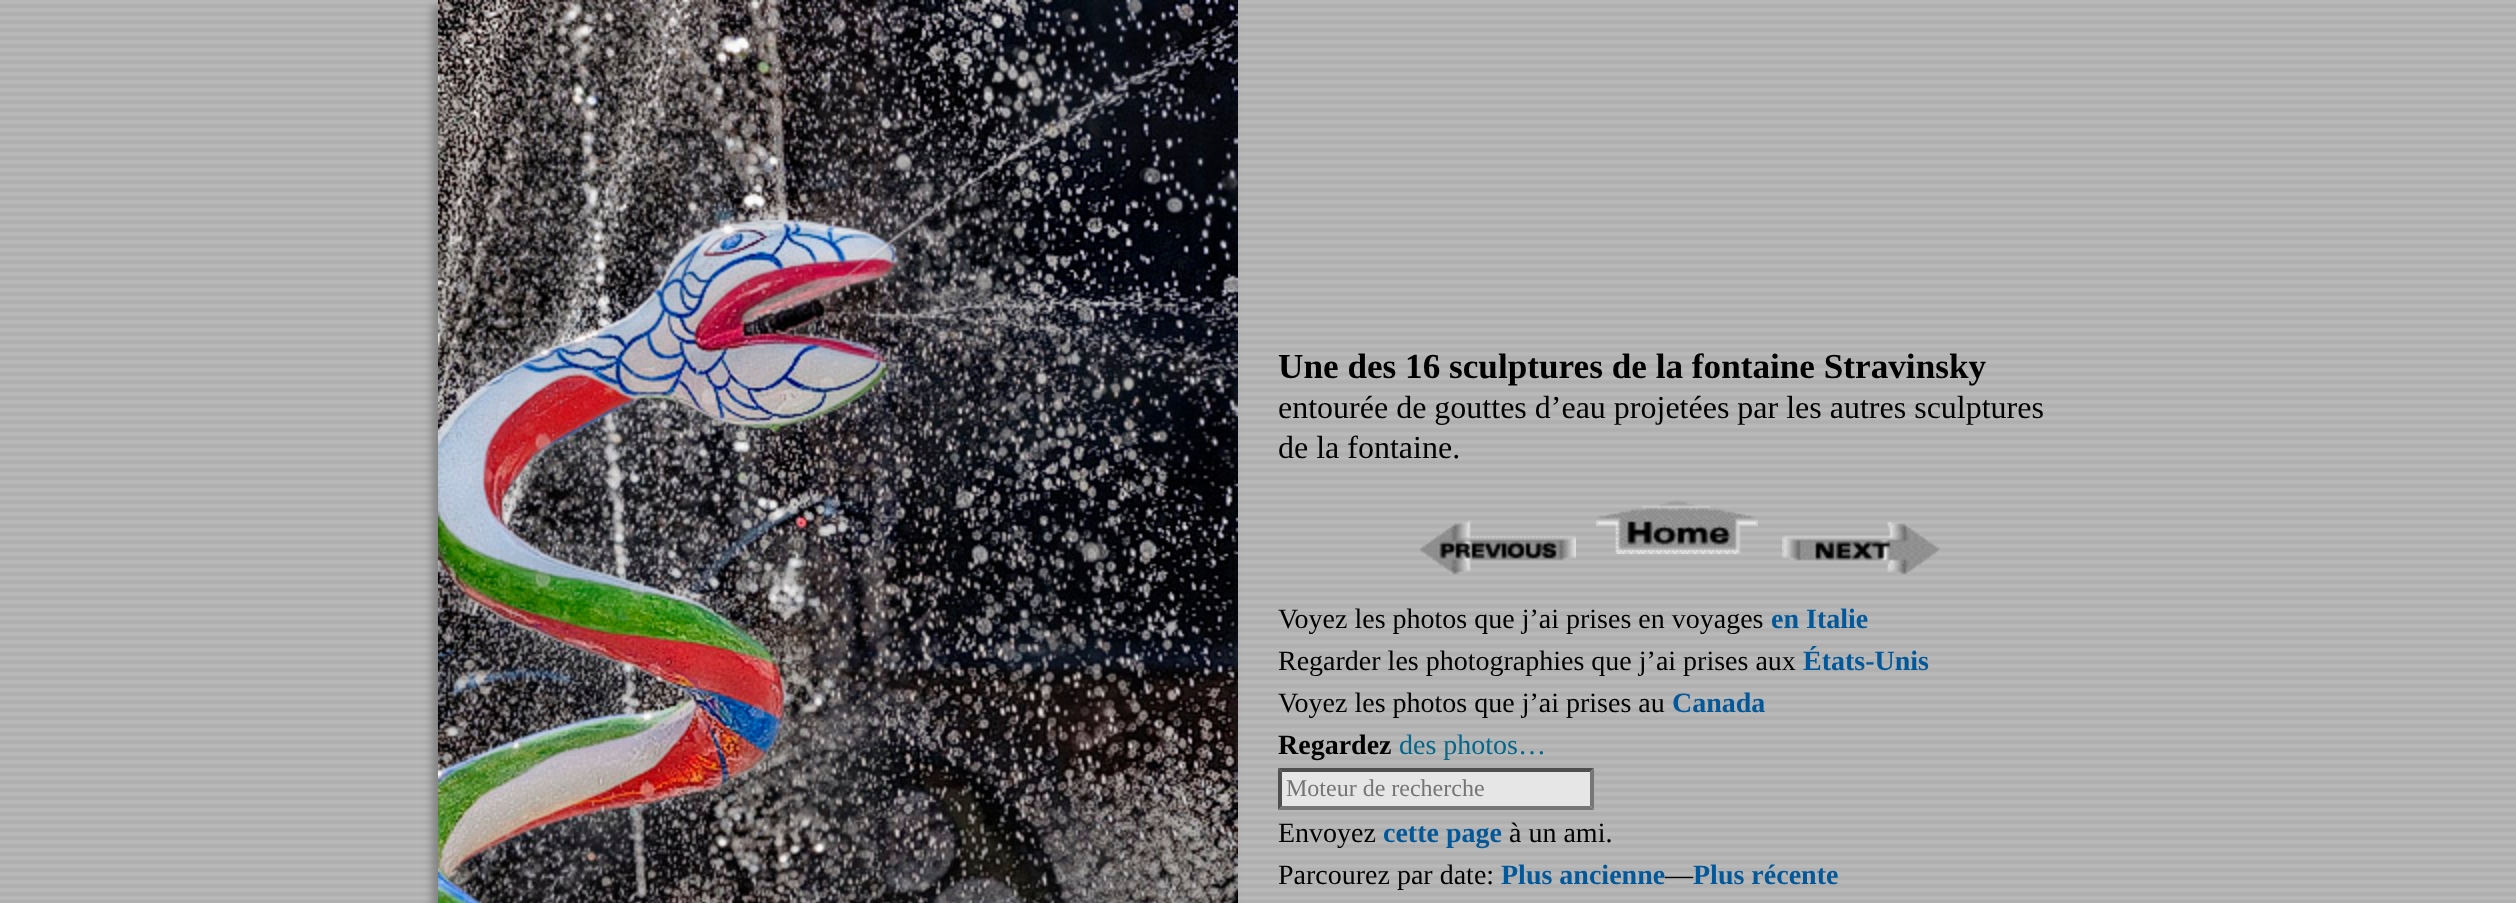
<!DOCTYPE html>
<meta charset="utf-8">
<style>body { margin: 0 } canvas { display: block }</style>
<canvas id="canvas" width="2516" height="903"></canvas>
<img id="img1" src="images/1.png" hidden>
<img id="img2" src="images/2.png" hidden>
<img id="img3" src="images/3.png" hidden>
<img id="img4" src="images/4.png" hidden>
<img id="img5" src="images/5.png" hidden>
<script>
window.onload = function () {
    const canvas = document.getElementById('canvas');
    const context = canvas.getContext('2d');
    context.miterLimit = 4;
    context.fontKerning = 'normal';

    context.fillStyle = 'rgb(255, 255, 255)';
    context.fillRect(0, 0, 2516, 903);
    context.drawImage(document.getElementById('img1'), 0, 0, 2516, 903);
    context.fillStyle = 'rgb(130, 130, 130)';
    context.filter = 'blur(4px)';
    context.beginPath();
    context.rect(432, 6, 800, 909);
    context.fill();
    context.filter = 'none';
    context.drawImage(document.getElementById('img2'), 438, 0, 800, 903);
    context.drawImage(document.getElementById('img3'), 1420, 520, 156, 54);
    context.drawImage(document.getElementById('img4'), 1596, 500, 162, 54);
    context.drawImage(document.getElementById('img5'), 1782, 522, 158, 52);
    context.fillStyle = 'rgb(230, 230, 230)';
    context.fillRect(1278, 768, 316, 42);
    context.fillStyle = 'rgb(79, 79, 79)';
    context.beginPath();
    context.moveTo(1278, 768);
    context.lineTo(1594, 768);
    context.lineTo(1590, 772);
    context.lineTo(1282, 772);
    context.closePath();
    context.fill();
    context.fillStyle = 'rgb(118, 118, 118)';
    context.beginPath();
    context.moveTo(1594, 768);
    context.lineTo(1594, 810);
    context.lineTo(1590, 806);
    context.lineTo(1590, 772);
    context.closePath();
    context.fill();
    context.beginPath();
    context.moveTo(1594, 810);
    context.lineTo(1278, 810);
    context.lineTo(1282, 806);
    context.lineTo(1590, 806);
    context.closePath();
    context.fill();
    context.fillStyle = 'rgb(79, 79, 79)';
    context.beginPath();
    context.moveTo(1278, 810);
    context.lineTo(1278, 768);
    context.lineTo(1282, 772);
    context.lineTo(1282, 806);
    context.closePath();
    context.fill();
    context.font = 'bold 35.2px Liberation Serif';
    context.fillStyle = 'rgb(0, 0, 0)';
    context.fillText('Une des 16 sculptures de la fontaine Stravinsky', 1278, 378);
    context.font = '32px Liberation Serif';
    context.fillText('entourée de gouttes d’eau projetées par les autres sculptures', 1278, 418);
    context.fillText('de la fontaine.', 1278, 458);
    context.font = '28px Liberation Serif';
    context.fillText('Voyez les photos que j’ai prises en voyages', 1278, 628);
    context.font = 'bold 28px Liberation Serif';
    context.fillStyle = 'rgb(3, 88, 154)';
    context.fillText('en Italie', 1771, 628);
    context.font = '28px Liberation Serif';
    context.fillStyle = 'rgb(0, 0, 0)';
    context.fillText('Regarder les photographies que j’ai prises aux', 1278, 670);
    context.font = 'bold 28px Liberation Serif';
    context.fillStyle = 'rgb(3, 88, 154)';
    context.fillText('États-Unis', 1803, 670);
    context.font = '28px Liberation Serif';
    context.fillStyle = 'rgb(0, 0, 0)';
    context.fillText('Voyez les photos que j’ai prises au', 1278, 712);
    context.font = 'bold 28px Liberation Serif';
    context.fillStyle = 'rgb(3, 88, 154)';
    context.fillText('Canada', 1672, 712);
    context.fillStyle = 'rgb(0, 0, 0)';
    context.fillText('Regardez', 1278, 754);
    context.font = '28px Liberation Serif';
    context.fillStyle = 'rgb(4, 103, 137)';
    context.fillText('des photos…', 1399, 754);
    context.font = '24px Liberation Serif';
    context.fillStyle = 'rgb(117, 117, 117)';
    context.fillText('Moteur de recherche', 1286, 796);
    context.font = '28px Liberation Serif';
    context.fillStyle = 'rgb(0, 0, 0)';
    context.fillText('Envoyez', 1278, 842);
    context.font = 'bold 28px Liberation Serif';
    context.fillStyle = 'rgb(3, 88, 154)';
    context.fillText('cette page', 1383, 842);
    context.font = '28px Liberation Serif';
    context.fillStyle = 'rgb(0, 0, 0)';
    context.fillText('à un ami.', 1509, 842);
    context.fillText('Parcourez par date:', 1278, 884);
    context.font = 'bold 28px Liberation Serif';
    context.fillStyle = 'rgb(3, 88, 154)';
    context.fillText('Plus ancienne', 1501, 884);
    context.font = '28px Liberation Serif';
    context.fillStyle = 'rgb(0, 0, 0)';
    context.fillText('—', 1665, 884);
    context.font = 'bold 28px Liberation Serif';
    context.fillStyle = 'rgb(3, 88, 154)';
    context.fillText('Plus récente', 1693, 884);
};
</script>
